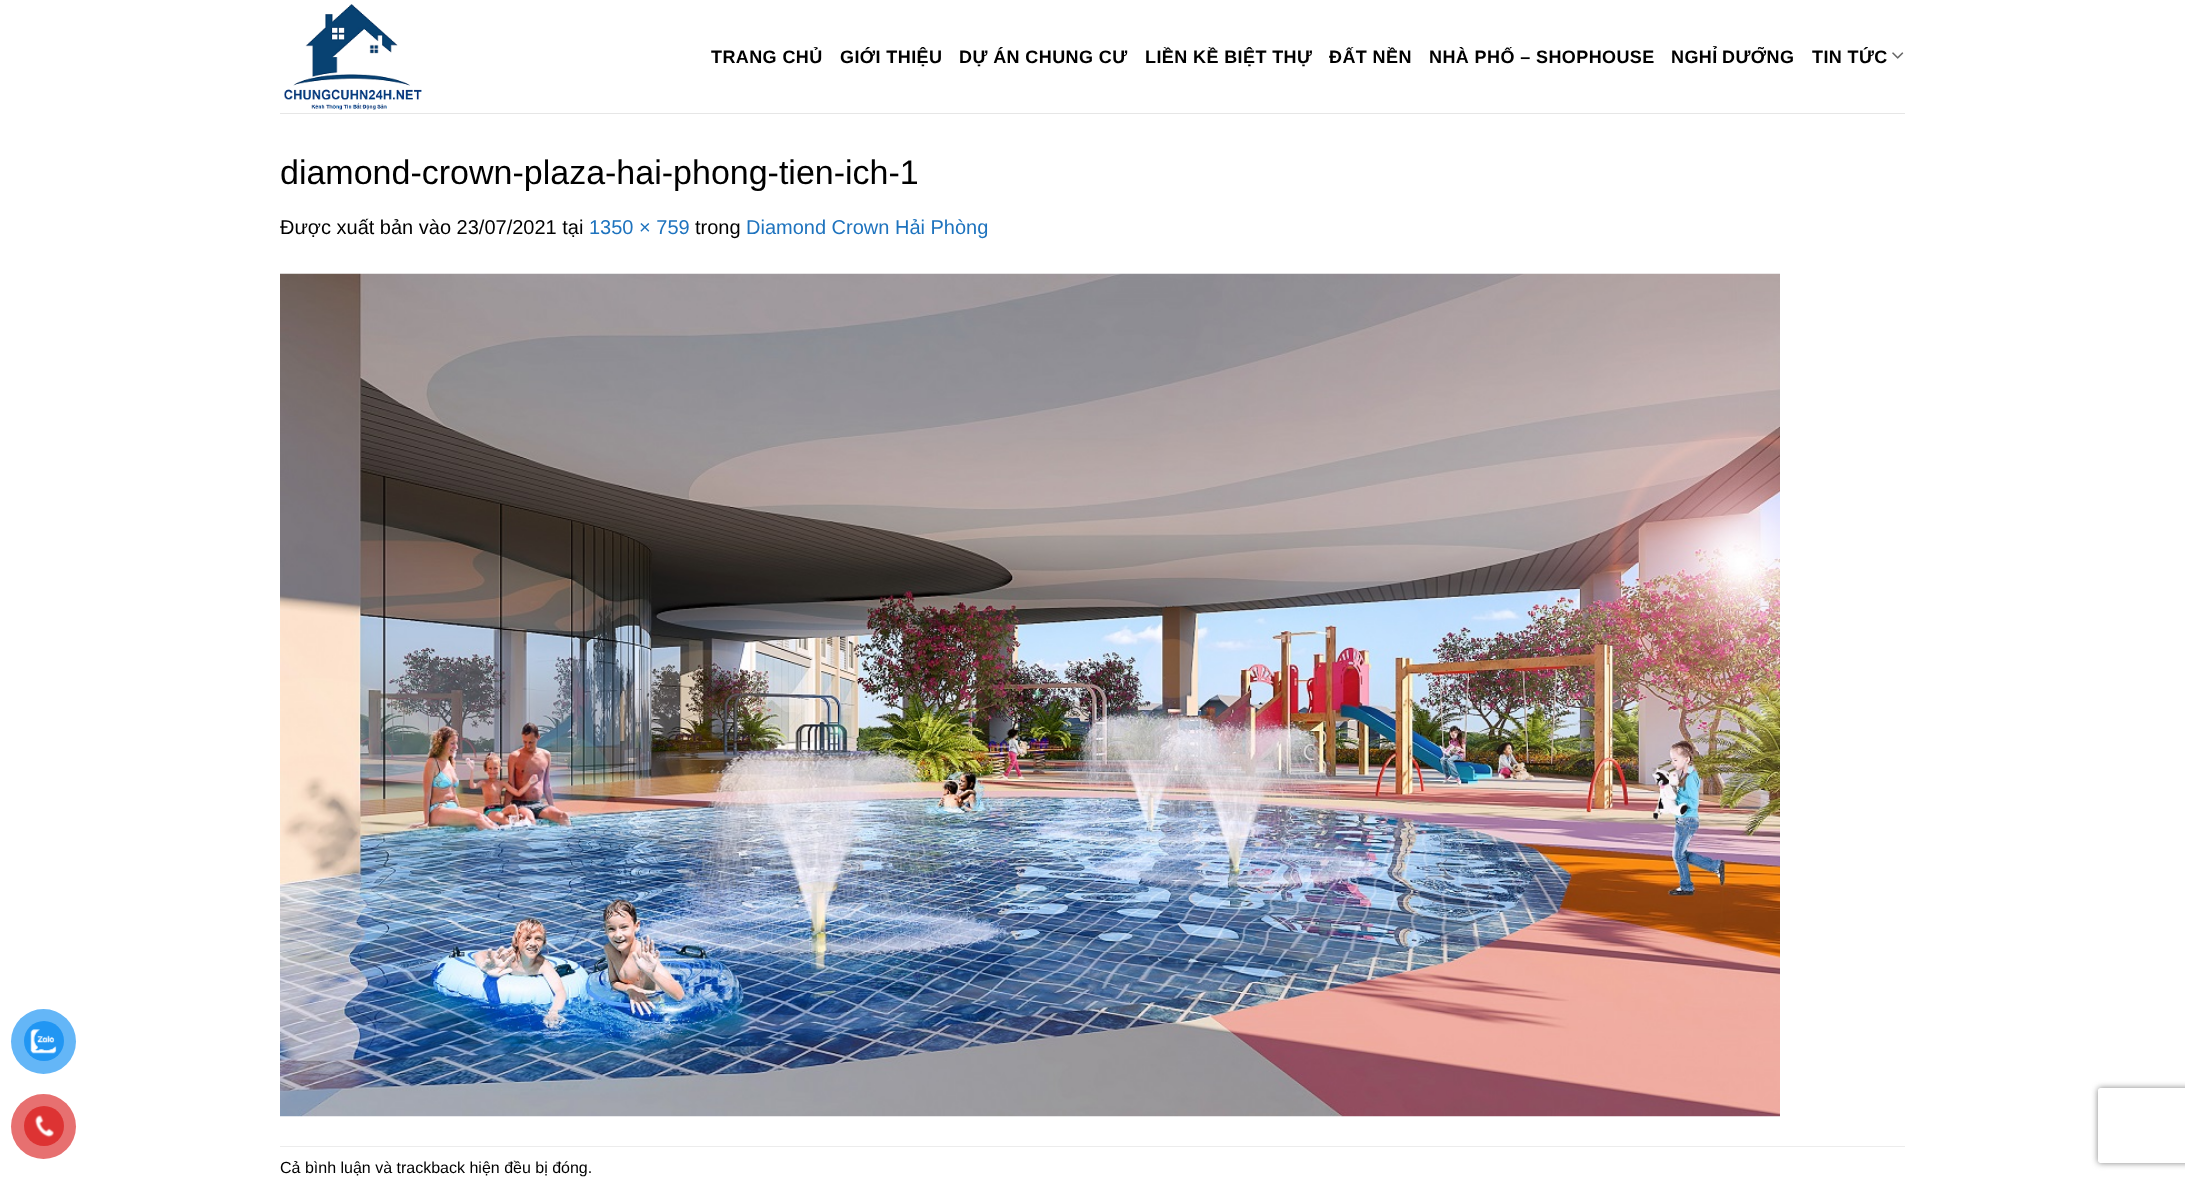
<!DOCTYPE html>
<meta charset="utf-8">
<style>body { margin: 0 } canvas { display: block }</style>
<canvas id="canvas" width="2185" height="1179"></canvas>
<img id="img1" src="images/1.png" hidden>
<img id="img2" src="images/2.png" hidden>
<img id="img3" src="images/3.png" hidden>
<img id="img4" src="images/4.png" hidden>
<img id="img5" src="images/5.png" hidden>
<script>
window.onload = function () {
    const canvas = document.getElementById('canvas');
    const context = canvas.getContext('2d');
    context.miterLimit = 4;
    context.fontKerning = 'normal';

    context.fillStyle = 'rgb(255, 255, 255)';
    context.fillRect(0, 0, 2185, 1179);
    context.fillStyle = 'rgb(100, 182, 247)';
    context.beginPath();
    context.arc(43.5, 1041.5, 32.5, 0, 2 * Math.PI);
    context.fill();
    context.fillStyle = 'rgb(33, 150, 243)';
    context.beginPath();
    context.arc(44, 1041, 20, 0, 2 * Math.PI);
    context.fill();
    context.drawImage(document.getElementById('img1'), 30, 1029, 27, 25);
    context.fillStyle = 'rgb(231, 112, 112)';
    context.beginPath();
    context.arc(43.5, 1126.5, 32.5, 0, 2 * Math.PI);
    context.fill();
    context.fillStyle = 'rgb(221, 51, 51)';
    context.beginPath();
    context.arc(44, 1126, 20, 0, 2 * Math.PI);
    context.fill();
    context.drawImage(document.getElementById('img2'), 34, 1115, 20, 23);
    context.drawImage(document.getElementById('img3'), 284, 4, 138, 106);
    context.drawImage(document.getElementById('img4'), 1892, 52, 12, 7);
    context.fillStyle = 'rgb(230, 230, 230)';
    context.fillRect(280, 113, 1625, 1);
    context.drawImage(document.getElementById('img5'), 280, 273, 1500, 844);
    context.fillStyle = 'rgb(236, 236, 236)';
    context.fillRect(280, 1146, 1625, 1);
    context.save();
    context.beginPath();
    context.moveTo(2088, 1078);
    context.lineTo(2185, 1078);
    context.lineTo(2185, 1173);
    context.lineTo(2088, 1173);
    context.closePath();
    context.moveTo(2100.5, 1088);
    context.lineTo(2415.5, 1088);
    context.bezierCurveTo(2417, 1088, 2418, 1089, 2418, 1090.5);
    context.lineTo(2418, 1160.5);
    context.bezierCurveTo(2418, 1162, 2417, 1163, 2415.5, 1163);
    context.lineTo(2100.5, 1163);
    context.bezierCurveTo(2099, 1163, 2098, 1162, 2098, 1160.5);
    context.lineTo(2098, 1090.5);
    context.bezierCurveTo(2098, 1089, 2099, 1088, 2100.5, 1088);
    context.closePath();
    context.clip('evenodd');
    context.fillStyle = 'rgb(128, 128, 128)';
    context.filter = 'blur(3px)';
    context.beginPath();
    context.roundRect(2098, 1088, 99, 75, 2.5);
    context.fill();
    context.filter = 'none';
    context.restore();
    context.letterSpacing = '0.4px';
    context.font = 'bold 18px Arimo';
    context.fillStyle = 'rgb(0, 0, 0)';
    context.fillText('TRANG CHỦ', 711, 63);
    context.fillText('GIỚI THIỆU', 840, 63);
    context.fillText('DỰ ÁN CHUNG CƯ', 959, 63);
    context.fillText('LIỀN KỀ BIỆT THỰ', 1145, 63);
    context.fillText('ĐẤT NỀN', 1329, 63);
    context.fillText('NHÀ PHỐ – SHOPHOUSE', 1429, 63);
    context.wordSpacing = '-1px';
    context.fillText('NGHỈ DƯỠNG', 1671, 63);
    context.wordSpacing = '0px';
    context.fillText('TIN TỨC', 1812, 63);
    context.letterSpacing = '0px';
    context.font = '34px Arimo';
    context.fillText('diamond-crown-plaza-hai-phong-tien-ich-1', 280, 184);
    context.font = '20px Arimo';
    context.fillText('Được xuất bản vào 23/07/2021 tại', 280, 234);
    context.fillStyle = 'rgb(30, 115, 190)';
    context.fillText('1350 × 759', 589, 234);
    context.fillStyle = 'rgb(0, 0, 0)';
    context.fillText('trong', 695, 234);
    context.fillStyle = 'rgb(30, 115, 190)';
    context.fillText('Diamond Crown Hải Phòng', 746, 234);
    context.font = '16px Arimo';
    context.fillStyle = 'rgb(0, 0, 0)';
    context.fillText('Cả bình luận và trackback hiện đều bị đóng.', 280, 1173);
};
</script>
